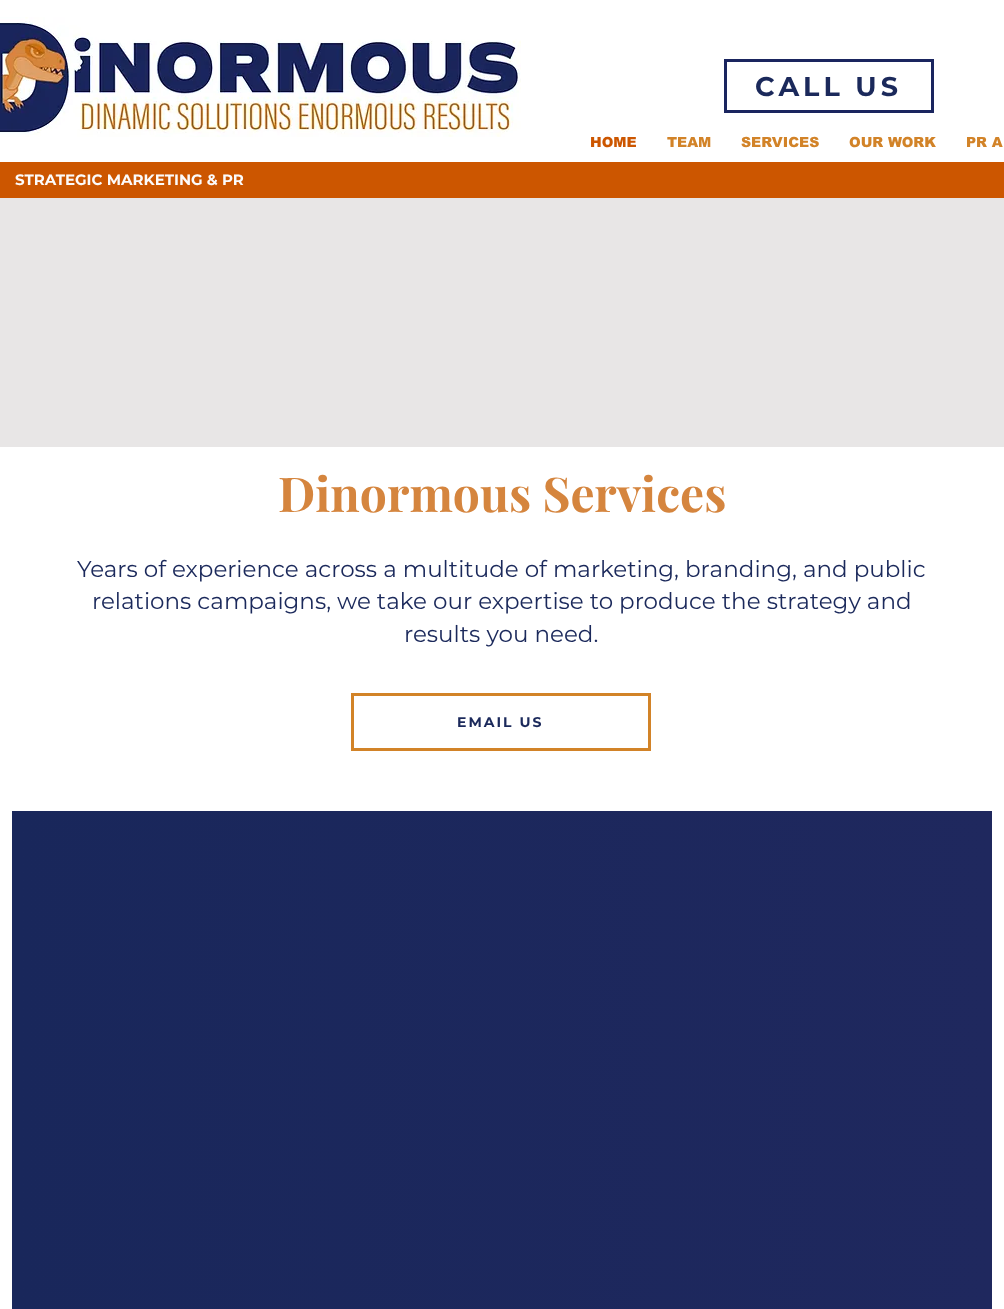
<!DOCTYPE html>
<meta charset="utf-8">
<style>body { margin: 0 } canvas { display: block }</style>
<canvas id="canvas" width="1004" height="1309"></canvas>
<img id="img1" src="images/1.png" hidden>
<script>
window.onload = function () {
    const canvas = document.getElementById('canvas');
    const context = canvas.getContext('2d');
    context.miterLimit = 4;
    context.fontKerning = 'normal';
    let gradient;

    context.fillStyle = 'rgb(255, 255, 255)';
    context.fillRect(0, 0, 1004, 1309);
    context.strokeStyle = 'rgb(26, 37, 95)';
    context.lineWidth = 3;
    context.strokeRect(725.5, 60.5, 207, 51);
    context.drawImage(document.getElementById('img1'), 0, 17, 521, 120);
    context.fillStyle = 'rgb(204, 86, 0)';
    context.fillRect(0, 162, 1004, 36);
    context.fillStyle = 'rgb(232, 230, 230)';
    context.fillRect(0, 198, 1004, 249);
    context.strokeStyle = 'rgb(210, 131, 40)';
    context.strokeRect(352.5, 694.5, 297, 55);
    gradient = context.createLinearGradient(12, 1098, 992, 1098);
    gradient.addColorStop(0, 'rgb(25, 39, 91)');
    gradient.addColorStop(1, 'rgb(31, 40, 94)');
    context.fillStyle = gradient;
    context.fillRect(12, 811, 980, 498);
    context.letterSpacing = '4px';
    context.font = 'bold 27px Montserrat';
    context.fillStyle = 'rgb(27, 41, 91)';
    context.fillText('CALL US', 755, 96);
    context.letterSpacing = '0px';
    context.font = '900 14px arial';
    context.fillStyle = 'rgb(204, 86, 0)';
    context.fillText('HOME', 590, 147);
    context.fillStyle = 'rgb(210, 131, 40)';
    context.fillText('TEAM', 667, 147);
    context.fillText('SERVICES', 741, 147);
    context.fillText('OUR WORK', 849, 147);
    context.fillText('PR A', 966, 147);
    context.font = 'bold 15px Montserrat';
    context.fillStyle = 'rgb(252, 251, 251)';
    context.fillText('STRATEGIC MARKETING & PR', 15, 185);
    context.font = 'bold 48px Playfair Display';
    context.fillStyle = 'rgb(213, 133, 62)';
    context.fillText('Dinormous Services', 278, 512);
    context.font = '23px Montserrat';
    context.fillStyle = 'rgb(27, 41, 91)';
    context.fillText('Years of experience across a multitude of marketing, branding, and public', 77, 577);
    context.fillText('relations campaigns, we take our expertise to produce the strategy and', 92, 609);
    context.fillText('results you need.', 404, 642);
    context.letterSpacing = '2px';
    context.font = 'bold 14px Montserrat';
    context.fillText('EMAIL US', 457, 727);
};
</script>
